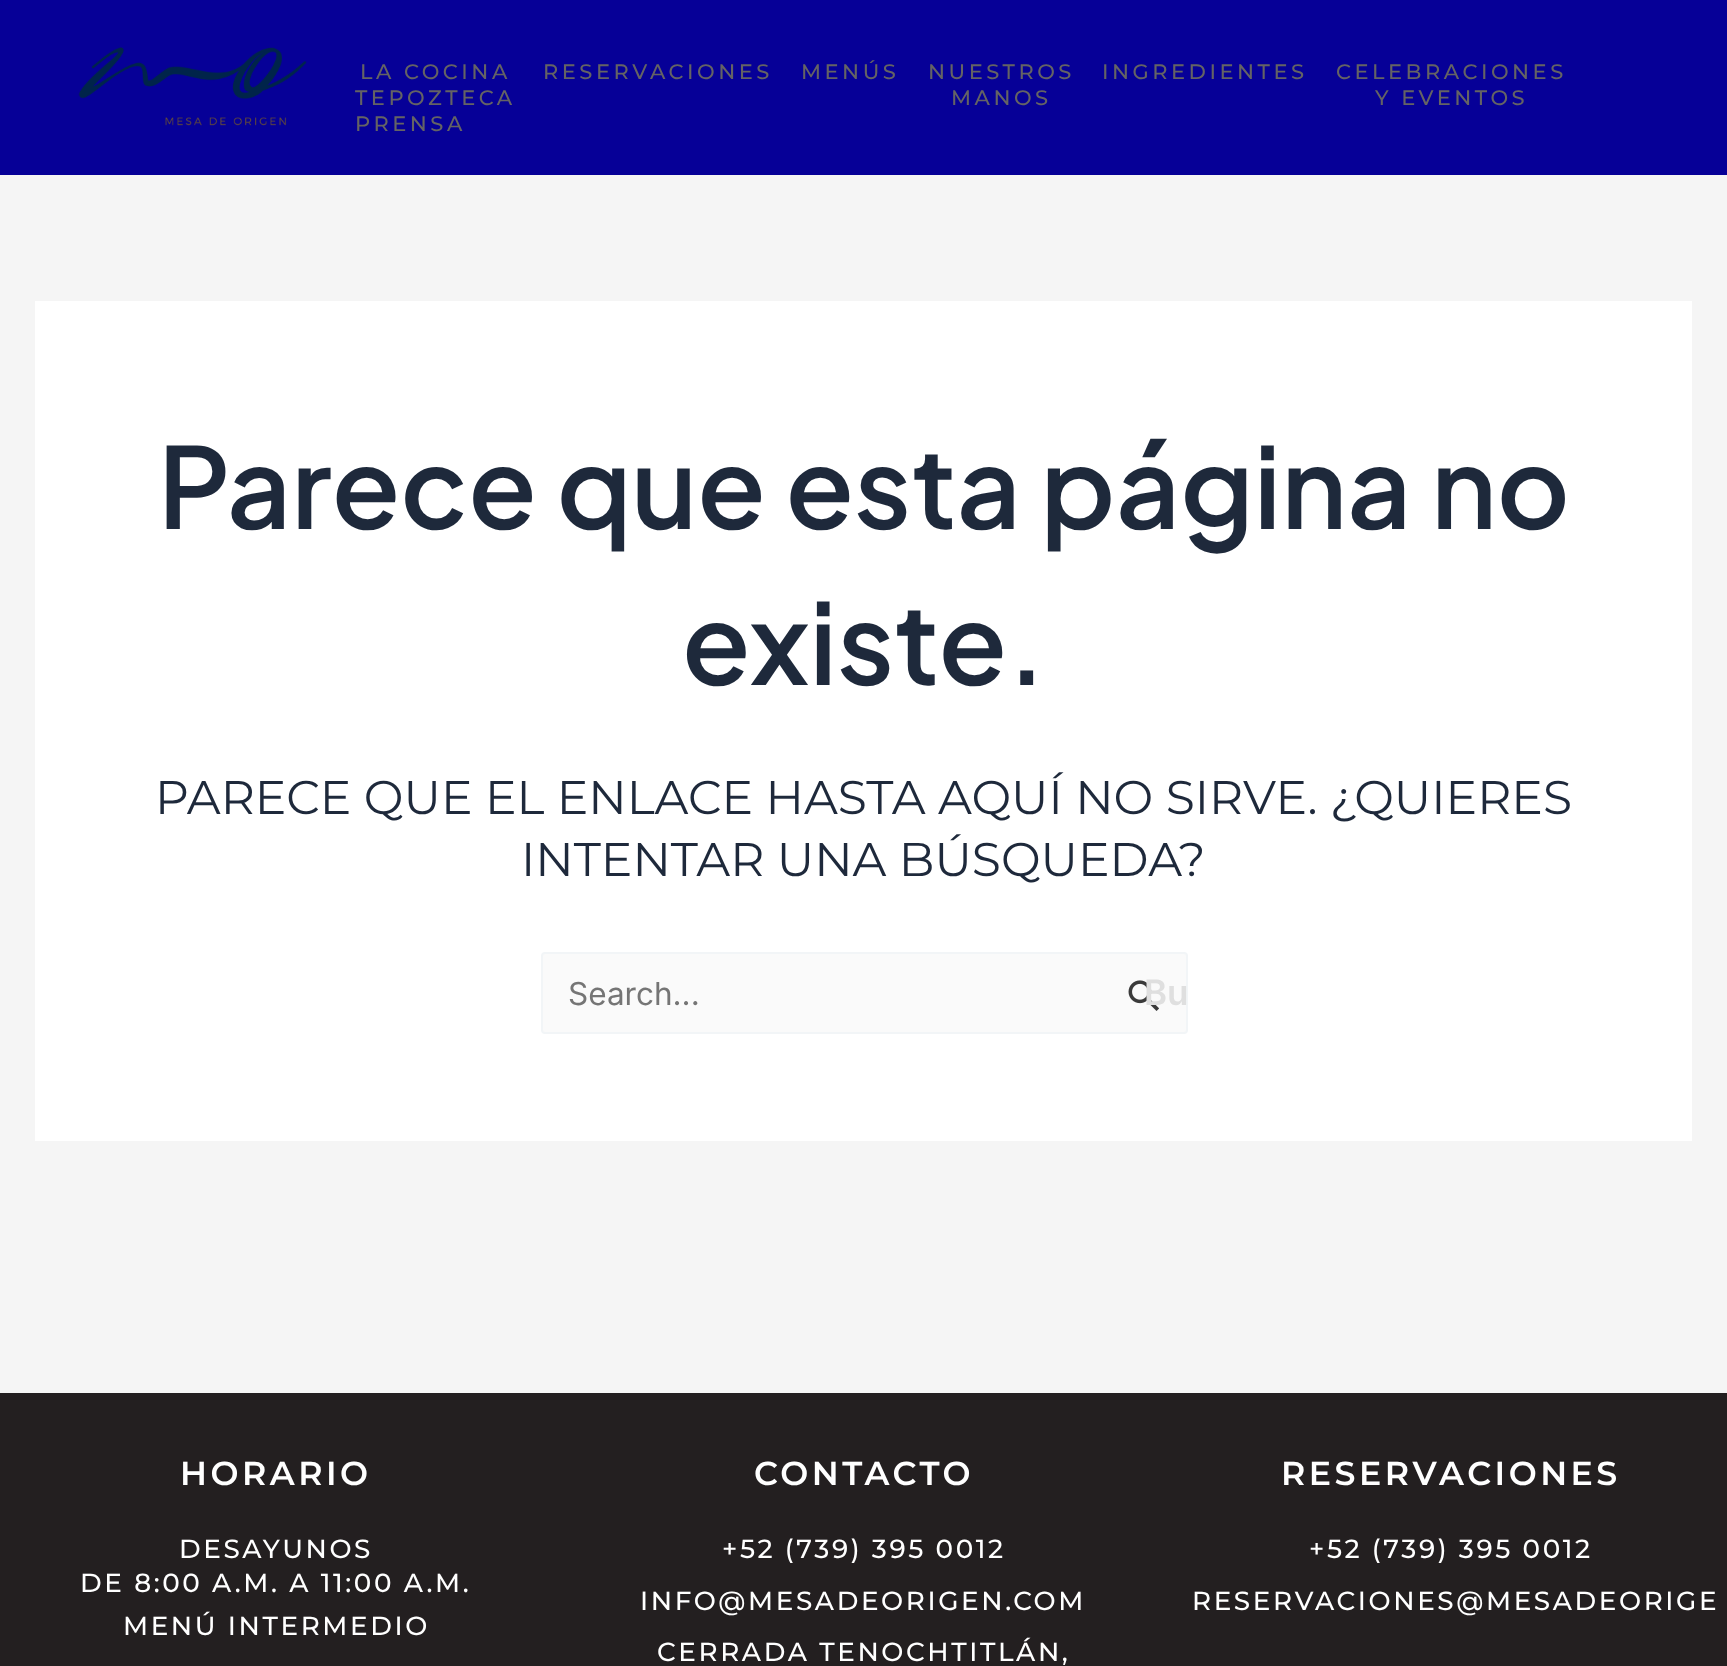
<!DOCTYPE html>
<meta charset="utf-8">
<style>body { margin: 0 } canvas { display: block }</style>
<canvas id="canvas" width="1727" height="1666"></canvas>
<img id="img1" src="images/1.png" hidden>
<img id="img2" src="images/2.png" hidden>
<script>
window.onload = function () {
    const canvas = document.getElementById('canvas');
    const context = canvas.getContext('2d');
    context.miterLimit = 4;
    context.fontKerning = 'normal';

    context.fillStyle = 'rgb(245, 245, 245)';
    context.fillRect(0, 0, 1727, 1666);
    context.fillStyle = 'rgb(6, 0, 151)';
    context.fillRect(0, 0, 1727, 175);
    context.drawImage(document.getElementById('img1'), 78, 47, 229, 79);
    context.fillStyle = 'rgb(255, 255, 255)';
    context.fillRect(35, 301, 1657, 840);
    context.fillStyle = 'rgb(250, 250, 250)';
    context.beginPath();
    context.roundRect(542, 953, 645, 80, 3);
    context.fill();
    context.strokeStyle = 'rgb(242, 245, 247)';
    context.lineWidth = 2;
    context.stroke();
    context.drawImage(document.getElementById('img2'), 1128, 980, 31, 31);
    context.fillStyle = 'rgb(35, 31, 32)';
    context.fillRect(0, 1393, 1727, 273);
    context.letterSpacing = '3.5px';
    context.font = '500 21px Montserrat';
    context.fillStyle = 'rgb(101, 99, 100)';
    context.fillText('LA COCINA', 360, 79);
    context.fillText('TEPOZTECA', 355, 105);
    context.fillText('RESERVACIONES', 543, 79);
    context.fillText('MENÚS', 801, 79);
    context.fillText('NUESTROS', 928, 79);
    context.fillText('MANOS', 951, 105);
    context.fillText('INGREDIENTES', 1102, 79);
    context.fillText('CELEBRACIONES', 1336, 79);
    context.fillText('Y EVENTOS', 1375, 105);
    context.fillText('PRENSA', 355, 131);
    context.letterSpacing = '0px';
    context.font = '600 112px Plus Jakarta Sans';
    context.fillStyle = 'rgb(30, 41, 59)';
    context.fillText('Parece que esta página no', 158, 529);
    context.fillText('existe.', 682, 685);
    context.font = '47.25px Montserrat';
    context.fillText('PARECE QUE EL ENLACE HASTA AQUÍ NO SIRVE. ¿QUIERES', 155, 814);
    context.fillText('INTENTAR UNA BÚSQUEDA?', 521, 876);
    context.font = '31.5px Inter';
    context.fillStyle = 'rgb(117, 117, 117)';
    context.fillText('Search...', 568, 1005);
    context.font = '600 35px Inter';
    context.fillStyle = 'rgb(223, 223, 223)';
    context.fillText('Bu', 1144, 1005);
    context.letterSpacing = '3.5px';
    context.font = '600 33.25px Montserrat';
    context.fillStyle = 'rgb(255, 255, 255)';
    context.fillText('HORARIO', 180, 1485);
    context.letterSpacing = '2.6px';
    context.font = '500 26.25px Montserrat';
    context.fillText('DESAYUNOS', 179, 1558);
    context.fillText('DE 8:00 A.M. A 11:00 A.M.', 80, 1592);
    context.fillText('MENÚ INTERMEDIO', 123, 1635);
    context.letterSpacing = '3.5px';
    context.font = '600 33.25px Montserrat';
    context.fillText('CONTACTO', 754, 1485);
    context.letterSpacing = '2.6px';
    context.font = '500 26.25px Montserrat';
    context.fillText('+52 (739) 395 0012', 722, 1558);
    context.fillText('INFO@MESADEORIGEN.COM', 640, 1610);
    context.fillText('CERRADA TENOCHTITLÁN,', 657, 1661);
    context.letterSpacing = '3.5px';
    context.font = '600 33.25px Montserrat';
    context.fillText('RESERVACIONES', 1281, 1485);
    context.letterSpacing = '2.6px';
    context.font = '500 26.25px Montserrat';
    context.fillText('+52 (739) 395 0012', 1309, 1558);
    context.fillText('RESERVACIONES@MESADEORIGE', 1192, 1610);
};
</script>
